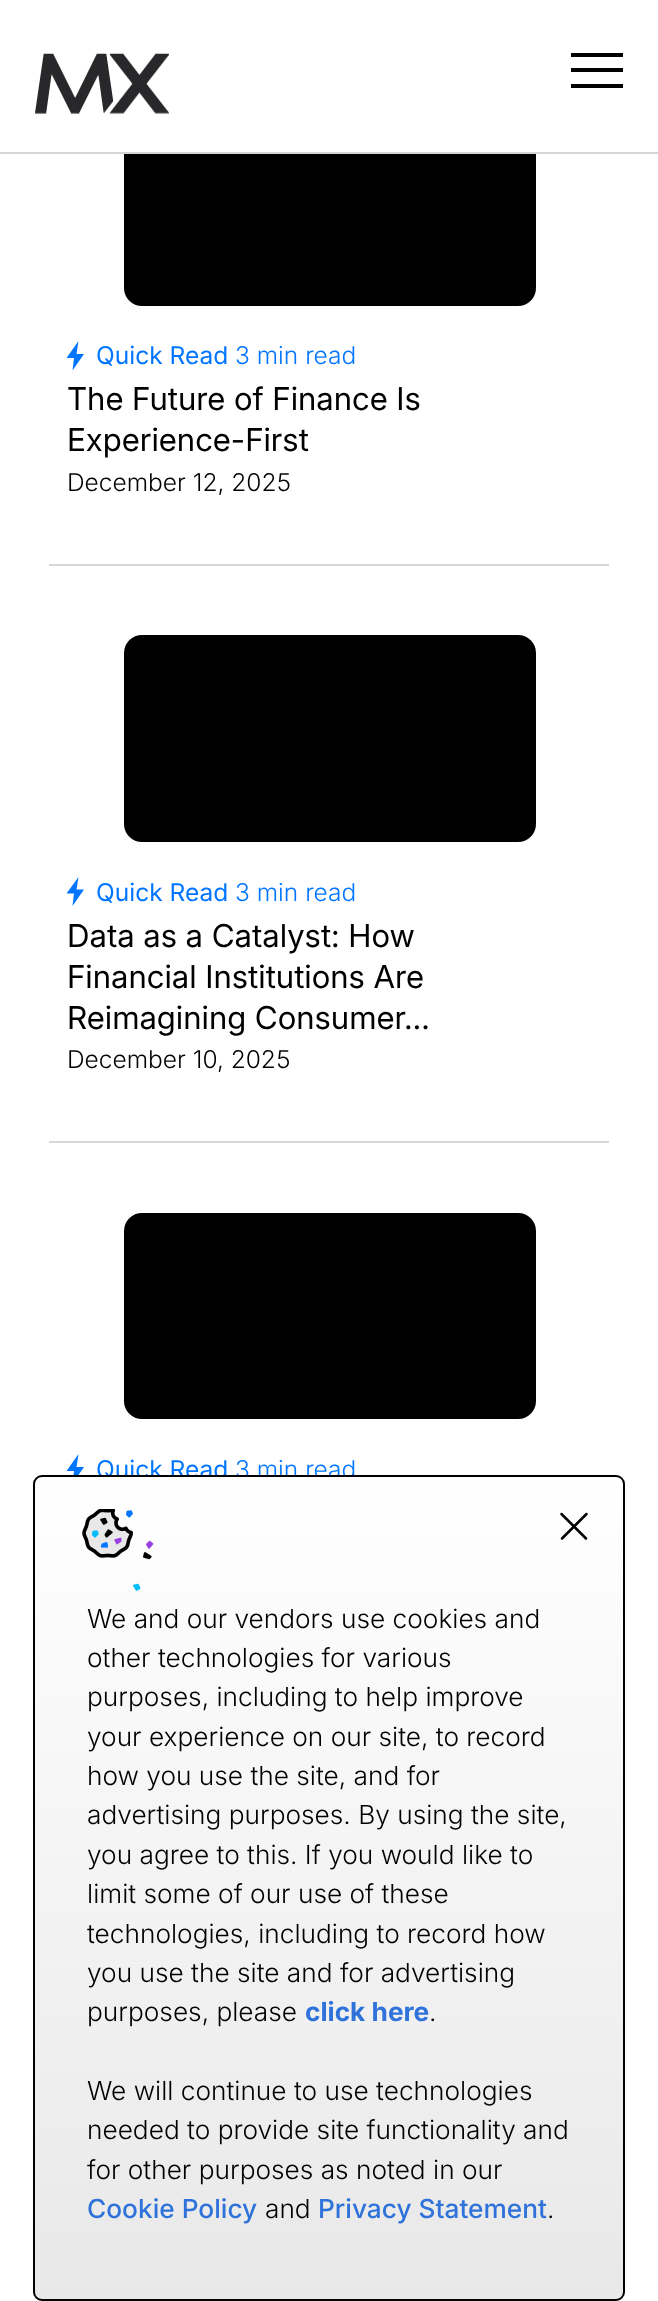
<!DOCTYPE html>
<meta charset="utf-8">
<style>body { margin: 0 } canvas { display: block }</style>
<canvas id="canvas" width="658" height="2301"></canvas>
<img id="img1" src="images/1.png" hidden>
<img id="img2" src="images/2.png" hidden>
<script>
window.onload = function () {
    const canvas = document.getElementById('canvas');
    const context = canvas.getContext('2d');
    context.miterLimit = 4;
    context.fontKerning = 'normal';
    let gradient;

    context.fillStyle = 'rgb(255, 255, 255)';
    context.fillRect(0, 0, 658, 2301);
    context.fillStyle = 'rgb(0, 0, 0)';
    context.beginPath();
    context.roundRect(124, 100, 412, 206, 18);
    context.fill();
    context.fillStyle = 'rgb(255, 255, 255)';
    context.fillRect(124, 100, 412, 52);
    context.fillStyle = 'rgb(213, 213, 213)';
    context.fillRect(0, 152, 658, 2);
    context.drawImage(document.getElementById('img1'), 35, 53, 134, 61);
    context.fillStyle = 'rgb(0, 0, 0)';
    context.fillRect(571, 53, 52, 4);
    context.fillRect(571, 68, 52, 4);
    context.fillRect(571, 84, 52, 4);
    context.fillStyle = 'rgb(216, 216, 216)';
    context.fillRect(49, 564, 560, 2);
    context.fillStyle = 'rgb(0, 117, 255)';
    context.beginPath();
    context.moveTo(72.5, 370.5);
    context.lineTo(74, 358);
    context.lineTo(66.5, 358);
    context.lineTo(78.5, 341);
    context.lineTo(76.5, 354);
    context.lineTo(84, 354);
    context.closePath();
    context.fill('evenodd');
    context.fillStyle = 'rgb(216, 216, 216)';
    context.fillRect(49, 1141, 560, 2);
    context.fillStyle = 'rgb(0, 0, 0)';
    context.beginPath();
    context.roundRect(124, 635, 412, 207, 18);
    context.fill();
    context.fillStyle = 'rgb(0, 117, 255)';
    context.beginPath();
    context.moveTo(72.5, 906);
    context.lineTo(74, 893.5);
    context.lineTo(66.5, 893.5);
    context.lineTo(78.5, 877);
    context.lineTo(76.5, 889.5);
    context.lineTo(84, 889.5);
    context.closePath();
    context.fill('evenodd');
    context.fillStyle = 'rgb(0, 0, 0)';
    context.beginPath();
    context.roundRect(124, 1213, 412, 206, 18);
    context.fill();
    context.fillStyle = 'rgb(0, 117, 255)';
    context.beginPath();
    context.moveTo(72.5, 1483.5);
    context.lineTo(74, 1471);
    context.lineTo(66.5, 1471);
    context.lineTo(78.5, 1454);
    context.lineTo(76.5, 1467);
    context.lineTo(84, 1467);
    context.closePath();
    context.fill('evenodd');
    context.font = '24.5px Inter';
    context.fillText('Quick Read', 96, 364);
    context.font = '300 24.5px Inter';
    context.fillText('3 min read', 235, 364);
    context.font = '31.5px "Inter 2"';
    context.fillStyle = 'rgb(0, 0, 0)';
    context.fillText('The Future of Finance Is', 67, 410);
    context.fillText('Experience-First', 67, 451);
    context.font = '300 24.5px Inter';
    context.fillText('December 12, 2025', 67, 491);
    context.font = '24.5px Inter';
    context.fillStyle = 'rgb(0, 117, 255)';
    context.fillText('Quick Read', 96, 901);
    context.font = '300 24.5px Inter';
    context.fillText('3 min read', 235, 901);
    context.font = '31.5px "Inter 2"';
    context.fillStyle = 'rgb(0, 0, 0)';
    context.fillText('Data as a Catalyst: How', 67, 947);
    context.fillText('Financial Institutions Are', 67, 988);
    context.fillText('Reimagining Consumer…', 67, 1029);
    context.font = '300 24.5px Inter';
    context.fillText('December 10, 2025', 67, 1068);
    context.font = '24.5px Inter';
    context.fillStyle = 'rgb(0, 117, 255)';
    context.fillText('Quick Read', 96, 1478);
    context.font = '300 24.5px Inter';
    context.fillText('3 min read', 235, 1478);
    context.save();
    context.beginPath();
    context.roundRect(33, 1475, 592, 826, 9);
    context.clip();
    gradient = context.createLinearGradient(329, 1477, 329, 2300);
    gradient.addColorStop(0, 'rgb(255, 255, 255)');
    gradient.addColorStop(1, 'rgb(232, 232, 232)');
    context.fillStyle = gradient;
    context.fillRect(33, 1477, 592, 823);
    context.restore();
    context.beginPath();
    context.roundRect(34, 1476, 590, 824, 8);
    context.strokeStyle = 'rgb(0, 0, 0)';
    context.lineWidth = 2;
    context.stroke();
    context.beginPath();
    context.moveTo(561.5, 1514);
    context.lineTo(586, 1538.5);
    context.moveTo(586.5, 1514);
    context.lineTo(562, 1538.5);
    context.lineWidth = 2.5;
    context.lineCap = 'round';
    context.stroke();
    context.drawImage(document.getElementById('img2'), 82, 1509, 72, 82);
    context.font = '300 26.25px Inter';
    context.fillStyle = 'rgb(0, 0, 0)';
    context.fillText('We and our vendors use cookies and', 87, 1628);
    context.fillText('other technologies for various', 87, 1667);
    context.fillText('purposes, including to help improve', 87, 1706);
    context.fillText('your experience on our site, to record', 87, 1746);
    context.fillText('how you use the site, and for', 87, 1785);
    context.fillText('advertising purposes. By using the site,', 87, 1824);
    context.fillText('you agree to this. If you would like to', 87, 1864);
    context.fillText('limit some of our use of these', 87, 1903);
    context.fillText('technologies, including to record how', 87, 1943);
    context.fillText('you use the site and for advertising', 87, 1982);
    context.fillText('purposes, please', 87, 2021);
    context.font = 'bold 26.25px Inter';
    context.fillStyle = 'rgb(47, 115, 218)';
    context.fillText('click here', 305, 2021);
    context.font = '300 26.25px Inter';
    context.fillStyle = 'rgb(0, 0, 0)';
    context.fillText('.', 429, 2021);
    context.fillText('We will continue to use technologies', 87, 2100);
    context.fillText('needed to provide site functionality and', 87, 2139);
    context.fillText('for other purposes as noted in our', 87, 2179);
    context.font = '500 26.25px Inter';
    context.fillStyle = 'rgb(47, 115, 218)';
    context.fillText('Cookie Policy', 87, 2218);
    context.font = '300 26.25px Inter';
    context.fillStyle = 'rgb(0, 0, 0)';
    context.fillText('and', 265, 2218);
    context.font = '500 26.25px Inter';
    context.fillStyle = 'rgb(47, 115, 218)';
    context.fillText('Privacy Statement', 318, 2218);
    context.font = '300 26.25px Inter';
    context.fillStyle = 'rgb(0, 0, 0)';
    context.fillText('.', 547, 2218);
};
</script>
